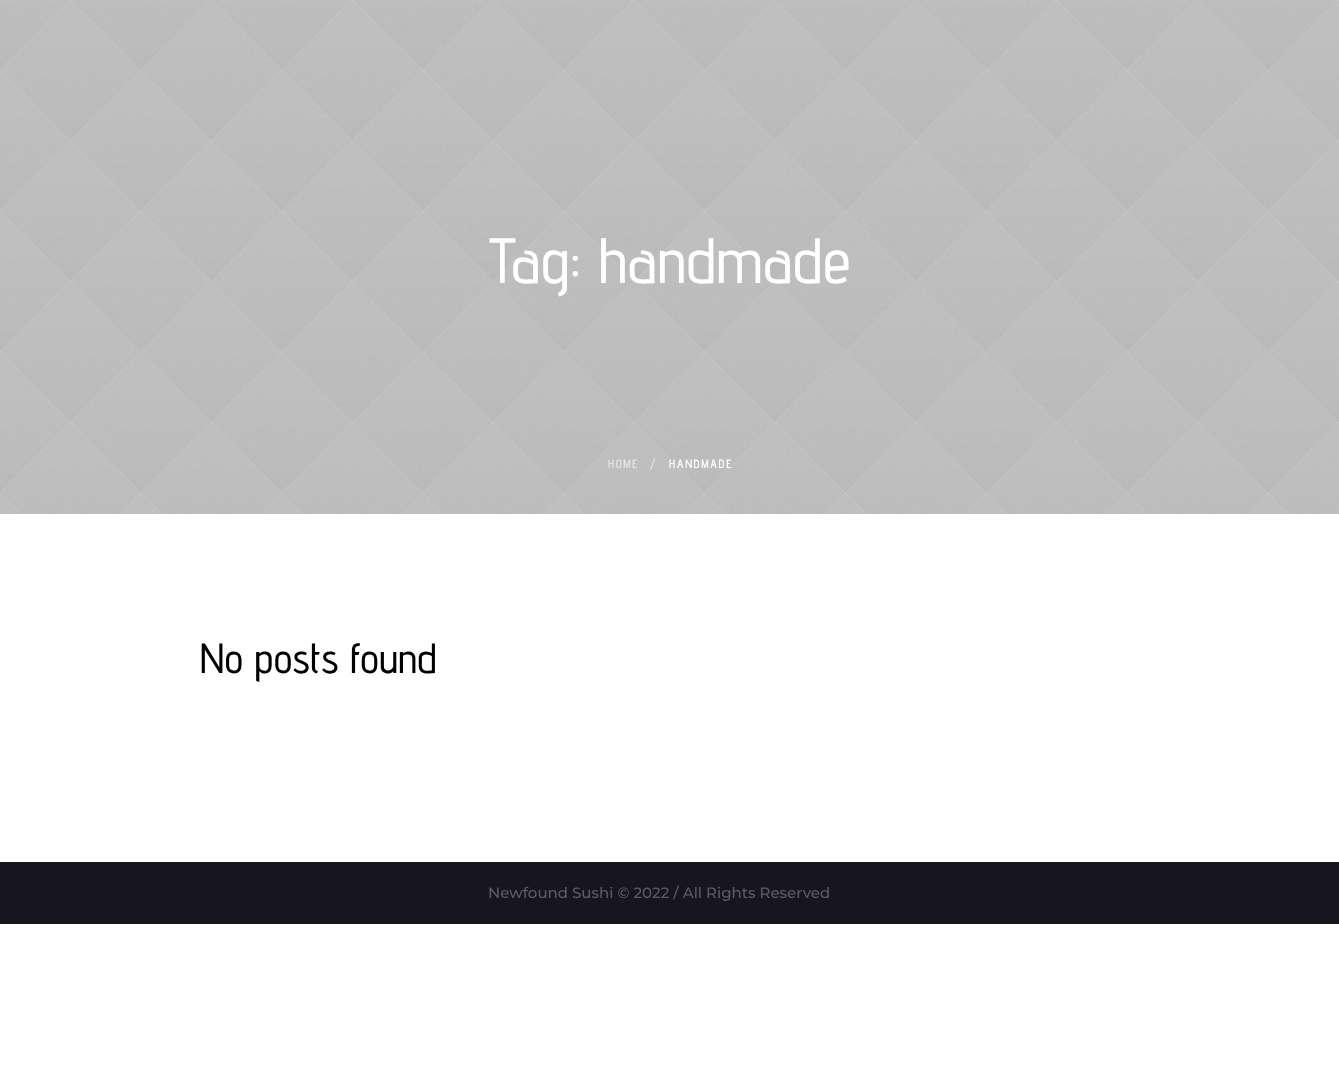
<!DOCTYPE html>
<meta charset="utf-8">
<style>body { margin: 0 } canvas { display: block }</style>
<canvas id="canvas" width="1339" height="1083"></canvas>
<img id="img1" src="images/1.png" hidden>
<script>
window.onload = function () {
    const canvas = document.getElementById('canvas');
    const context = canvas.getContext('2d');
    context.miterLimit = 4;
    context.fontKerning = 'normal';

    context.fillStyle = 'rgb(255, 255, 255)';
    context.fillRect(0, 0, 1339, 1083);
    context.drawImage(document.getElementById('img1'), 0, 0, 1339, 514);
    context.fillStyle = 'rgb(23, 22, 32)';
    context.fillRect(0, 862, 1339, 62);
    context.font = '500 64px Advent Pro';
    context.fillStyle = 'rgb(255, 255, 255)';
    context.fillText('Tag: handmade', 489, 283);
    context.letterSpacing = '1.5px';
    context.font = '600 12px Advent Pro';
    context.fillStyle = 'rgb(229, 229, 229)';
    context.fillText('HOME', 608, 468);
    context.fillText('/', 650, 468);
    context.fillStyle = 'rgb(255, 255, 255)';
    context.fillText('HANDMADE', 669, 468);
    context.letterSpacing = '0px';
    context.font = '500 42px Advent Pro';
    context.fillStyle = 'rgb(0, 0, 0)';
    context.fillText('No posts found', 200, 673);
    context.font = '500 15px Montserrat';
    context.fillStyle = 'rgb(93, 92, 99)';
    context.fillText('Newfound Sushi © 2022 / All Rights Reserved', 488, 898);
};
</script>
